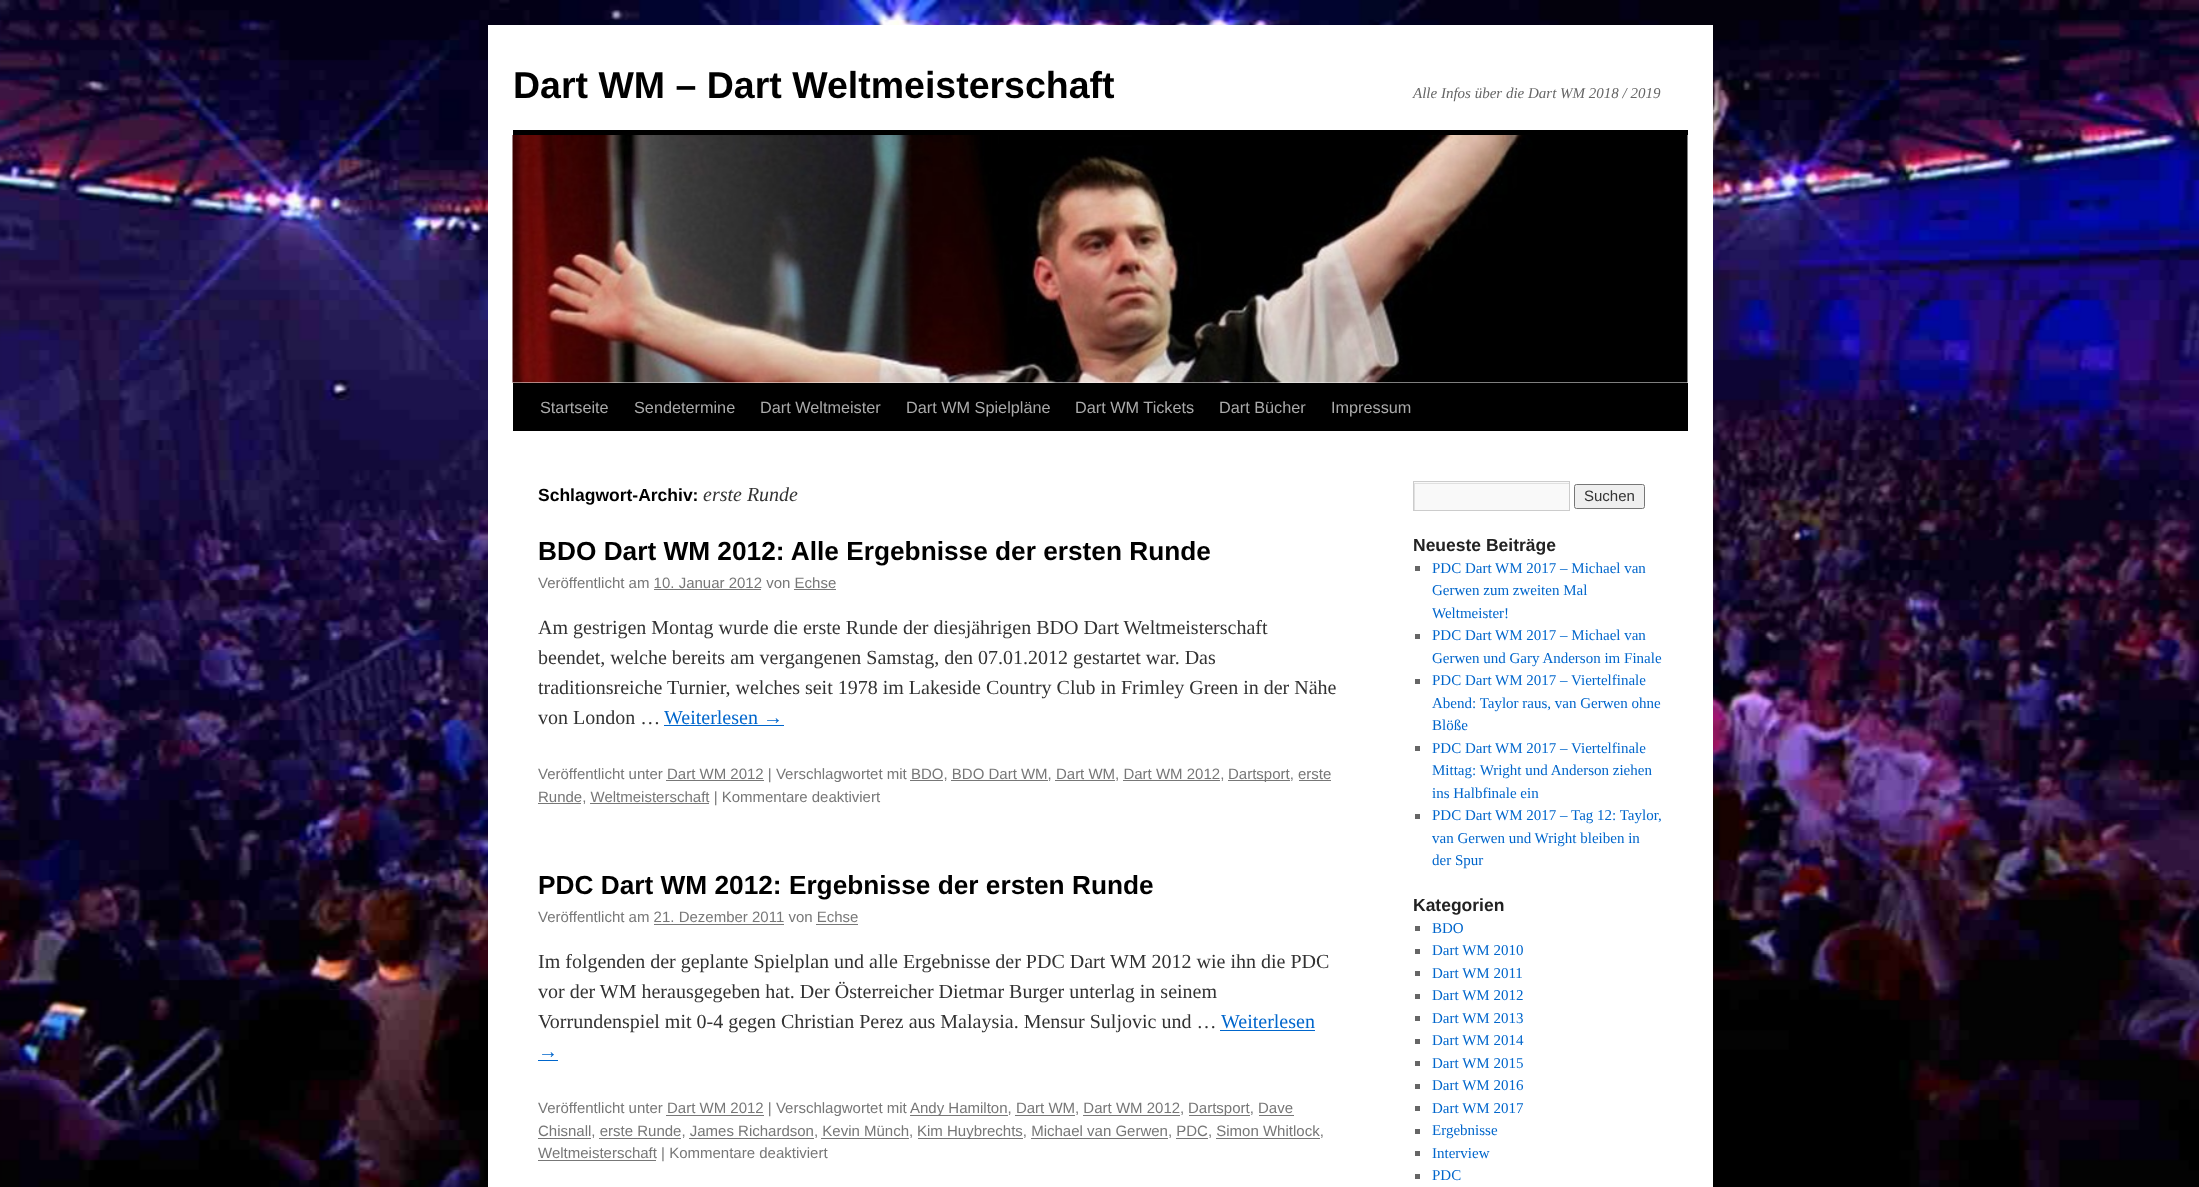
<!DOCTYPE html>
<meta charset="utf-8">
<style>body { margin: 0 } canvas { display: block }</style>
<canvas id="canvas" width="2199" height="1187"></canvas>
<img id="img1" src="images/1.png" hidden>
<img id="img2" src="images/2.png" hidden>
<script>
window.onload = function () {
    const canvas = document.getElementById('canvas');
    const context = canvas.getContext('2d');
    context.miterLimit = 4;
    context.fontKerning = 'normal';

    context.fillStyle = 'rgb(255, 255, 255)';
    context.fillRect(0, 0, 2199, 1187);
    context.drawImage(document.getElementById('img1'), 0, 0, 2199, 1187);
    context.fillRect(488, 25, 1225, 1162);
    context.fillStyle = 'rgb(0, 0, 0)';
    context.fillRect(513, 130, 1175, 5);
    context.fillRect(513, 383, 1175, 48);
    context.drawImage(document.getElementById('img2'), 512, 135, 1176, 248);
    context.fillStyle = 'rgb(119, 119, 119)';
    context.fillRect(654, 589, 107, 1);
    context.fillRect(794, 589, 42, 1);
    context.fillStyle = 'rgb(0, 102, 204)';
    context.fillRect(664, 725, 120, 1);
    context.fillStyle = 'rgb(119, 119, 119)';
    context.fillRect(666, 780, 98, 1);
    context.fillRect(1055, 780, 60, 1);
    context.fillRect(1123, 780, 97, 1);
    context.fillRect(1228, 780, 62, 1);
    context.fillRect(1299, 780, 32, 1);
    context.fillRect(910, 780, 33, 1);
    context.fillRect(951, 780, 97, 1);
    context.fillRect(538, 803, 43, 1);
    context.fillRect(590, 803, 119, 1);
    context.fillRect(654, 924, 130, 1);
    context.fillRect(816, 924, 42, 1);
    context.fillStyle = 'rgb(0, 102, 204)';
    context.fillRect(1220, 1030, 95, 1);
    context.fillRect(538, 1060, 20, 1);
    context.fillStyle = 'rgb(119, 119, 119)';
    context.fillRect(666, 1115, 98, 1);
    context.fillRect(910, 1115, 98, 1);
    context.fillRect(1015, 1115, 60, 1);
    context.fillRect(1083, 1115, 97, 1);
    context.fillRect(1189, 1115, 61, 1);
    context.fillRect(1259, 1115, 35, 1);
    context.fillRect(538, 1138, 53, 1);
    context.fillRect(599, 1138, 82, 1);
    context.fillRect(689, 1138, 125, 1);
    context.fillRect(821, 1138, 88, 1);
    context.fillRect(918, 1138, 105, 1);
    context.fillRect(1031, 1138, 137, 1);
    context.fillRect(1176, 1138, 32, 1);
    context.fillRect(1216, 1138, 104, 1);
    context.fillRect(538, 1160, 118, 1);
    context.fillStyle = 'rgb(249, 249, 249)';
    context.fillRect(1414, 482, 155, 28);
    context.save();
    context.beginPath();
    context.rect(1414, 483, 155, 27);
    context.clip();
    context.fillStyle = 'rgb(224, 224, 224)';
    context.beginPath();
    context.moveTo(1290, 359);
    context.lineTo(1692, 359);
    context.lineTo(1692, 634);
    context.lineTo(1290, 634);
    context.closePath();
    context.moveTo(1415, 484);
    context.lineTo(1570, 484);
    context.lineTo(1570, 511);
    context.lineTo(1415, 511);
    context.closePath();
    context.fill('evenodd');
    context.restore();
    context.strokeStyle = 'rgb(204, 204, 204)';
    context.strokeRect(1413.5, 481.5, 156, 29);
    context.fillStyle = 'rgb(239, 239, 239)';
    context.beginPath();
    context.roundRect(1574.5, 484.5, 70, 24, 2);
    context.fill();
    context.strokeStyle = 'rgb(118, 118, 118)';
    context.stroke();
    context.fillStyle = 'rgb(102, 102, 102)';
    context.fillRect(1415, 566, 5, 5);
    context.fillRect(1415, 634, 5, 5);
    context.fillRect(1415, 679, 5, 5);
    context.fillRect(1415, 746, 5, 5);
    context.fillRect(1415, 814, 5, 5);
    context.fillRect(1415, 926, 5, 5);
    context.fillRect(1415, 949, 5, 5);
    context.fillRect(1415, 971, 5, 5);
    context.fillRect(1415, 994, 5, 5);
    context.fillRect(1415, 1016, 5, 5);
    context.fillRect(1415, 1039, 5, 5);
    context.fillRect(1415, 1061, 5, 5);
    context.fillRect(1415, 1084, 5, 5);
    context.fillRect(1415, 1106, 5, 5);
    context.fillRect(1415, 1129, 5, 5);
    context.fillRect(1415, 1151, 5, 5);
    context.fillRect(1415, 1174, 5, 5);
    context.font = 'bold 37.5px Liberation Sans';
    context.fillStyle = 'rgb(0, 0, 0)';
    context.fillText('Dart WM – Dart Weltmeisterschaft', 513, 98);
    context.font = 'italic 15px Liberation Serif';
    context.fillStyle = 'rgb(102, 102, 102)';
    context.fillText('Alle Infos über die Dart WM 2018 / 2019', 1413, 98);
    context.font = '16.25px Liberation Sans';
    context.fillStyle = 'rgb(170, 170, 170)';
    context.fillText('Startseite', 540, 413);
    context.fillText('Sendetermine', 634, 413);
    context.fillText('Dart Weltmeister', 760, 413);
    context.fillText('Dart WM Spielpläne', 906, 413);
    context.fillText('Dart WM Tickets', 1075, 413);
    context.fillText('Dart Bücher', 1219, 413);
    context.fillText('Impressum', 1331, 413);
    context.font = 'bold 17.5px Liberation Sans';
    context.fillStyle = 'rgb(0, 0, 0)';
    context.fillText('Schlagwort-Archiv:', 538, 501);
    context.font = 'italic 20px Liberation Serif';
    context.fillStyle = 'rgb(51, 51, 51)';
    context.fillText('erste Runde', 703, 501);
    context.font = 'bold 26.25px Liberation Sans';
    context.fillStyle = 'rgb(0, 0, 0)';
    context.fillText('BDO Dart WM 2012: Alle Ergebnisse der ersten Runde', 538, 560);
    context.font = '15px Liberation Sans';
    context.fillStyle = 'rgb(119, 119, 119)';
    context.fillText('Veröffentlicht am 10. Januar 2012 von Echse', 538, 588);
    context.font = '20px Liberation Serif';
    context.fillStyle = 'rgb(51, 51, 51)';
    context.fillText('Am gestrigen Montag wurde die erste Runde der diesjährigen BDO Dart Weltmeisterschaft', 538, 634);
    context.fillText('beendet, welche bereits am vergangenen Samstag, den 07.01.2012 gestartet war. Das', 538, 664);
    context.fillText('traditionsreiche Turnier, welches seit 1978 im Lakeside Country Club in Frimley Green in der Nähe', 538, 694);
    context.fillText('von London …', 538, 724);
    context.fillStyle = 'rgb(0, 102, 204)';
    context.fillText('Weiterlesen →', 664, 724);
    context.font = '15px Liberation Sans';
    context.fillStyle = 'rgb(119, 119, 119)';
    context.fillText('Veröffentlicht unter Dart WM 2012 | Verschlagwortet mit BDO, BDO Dart WM, Dart WM, Dart WM 2012,', 538, 779);
    context.fillText('Dartsport, erste', 1228, 779);
    context.fillText('Runde, Weltmeisterschaft | Kommentare deaktiviert', 538, 802);
    context.font = 'bold 26.25px Liberation Sans';
    context.fillStyle = 'rgb(0, 0, 0)';
    context.fillText('PDC Dart WM 2012: Ergebnisse der ersten Runde', 538, 894);
    context.font = '15px Liberation Sans';
    context.fillStyle = 'rgb(119, 119, 119)';
    context.fillText('Veröffentlicht am 21. Dezember 2011 von Echse', 538, 922);
    context.font = '20px Liberation Serif';
    context.fillStyle = 'rgb(51, 51, 51)';
    context.fillText('Im folgenden der geplante Spielplan und alle Ergebnisse der PDC Dart WM 2012 wie ihn die PDC', 538, 968);
    context.fillText('vor der WM herausgegeben hat. Der Österreicher Dietmar Burger unterlag in seinem', 538, 998);
    context.fillText('Vorrundenspiel mit 0-4 gegen Christian Perez aus Malaysia. Mensur Suljovic und …', 538, 1028);
    context.fillStyle = 'rgb(0, 102, 204)';
    context.fillText('Weiterlesen', 1221, 1028);
    context.fillText('→', 538, 1058);
    context.font = '15px Liberation Sans';
    context.fillStyle = 'rgb(119, 119, 119)';
    context.fillText('Veröffentlicht unter Dart WM 2012 | Verschlagwortet mit', 538, 1113);
    context.fillText('Andy Hamilton, Dart WM, Dart WM 2012,', 910, 1113);
    context.fillText('Dartsport, Dave', 1188, 1113);
    context.fillText('Chisnall, erste Runde, James Richardson, Kevin Münch,', 538, 1136);
    context.fillText('Kim Huybrechts, Michael van Gerwen, PDC, Simon Whitlock,', 917, 1136);
    context.fillText('Weltmeisterschaft | Kommentare deaktiviert', 538, 1158);
    context.fillStyle = 'rgb(51, 51, 51)';
    context.fillText('Suchen', 1584, 501);
    context.font = 'bold 17.5px Liberation Sans';
    context.fillStyle = 'rgb(34, 34, 34)';
    context.fillText('Neueste Beiträge', 1413, 551);
    context.font = '15px Liberation Serif';
    context.fillStyle = 'rgb(0, 102, 204)';
    context.fillText('PDC Dart WM 2017 – Michael van', 1432, 573);
    context.fillText('Gerwen zum zweiten Mal', 1432, 595);
    context.fillText('Weltmeister!', 1432, 618);
    context.fillText('PDC Dart WM 2017 – Michael van', 1432, 640);
    context.fillText('Gerwen und Gary Anderson im Finale', 1432, 663);
    context.fillText('PDC Dart WM 2017 – Viertelfinale', 1432, 685);
    context.fillText('Abend: Taylor raus, van Gerwen ohne', 1432, 708);
    context.fillText('Blöße', 1432, 730);
    context.fillText('PDC Dart WM 2017 – Viertelfinale', 1432, 753);
    context.fillText('Mittag: Wright und Anderson ziehen', 1432, 775);
    context.fillText('ins Halbfinale ein', 1432, 798);
    context.fillText('PDC Dart WM 2017 – Tag 12: Taylor,', 1432, 820);
    context.fillText('van Gerwen und Wright bleiben in', 1432, 843);
    context.fillText('der Spur', 1432, 865);
    context.font = 'bold 17.5px Liberation Sans';
    context.fillStyle = 'rgb(34, 34, 34)';
    context.fillText('Kategorien', 1413, 911);
    context.font = '15px Liberation Serif';
    context.fillStyle = 'rgb(0, 102, 204)';
    context.fillText('BDO', 1432, 933);
    context.fillText('Dart WM 2010', 1432, 955);
    context.fillText('Dart WM 2011', 1432, 978);
    context.fillText('Dart WM 2012', 1432, 1000);
    context.fillText('Dart WM 2013', 1432, 1023);
    context.fillText('Dart WM 2014', 1432, 1045);
    context.fillText('Dart WM 2015', 1432, 1068);
    context.fillText('Dart WM 2016', 1432, 1090);
    context.fillText('Dart WM 2017', 1432, 1113);
    context.fillText('Ergebnisse', 1432, 1135);
    context.fillText('Interview', 1432, 1158);
    context.fillText('PDC', 1432, 1180);
};
</script>
